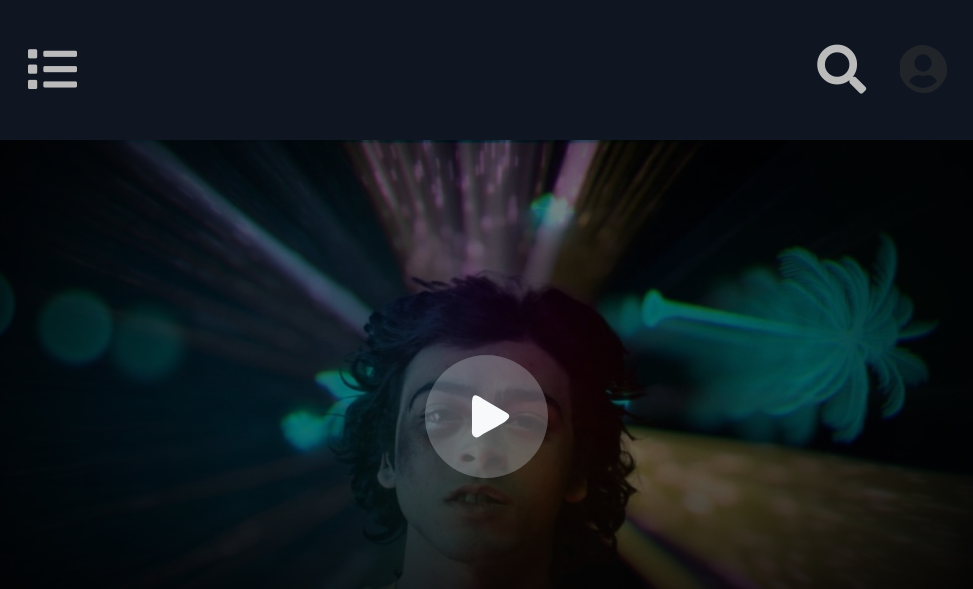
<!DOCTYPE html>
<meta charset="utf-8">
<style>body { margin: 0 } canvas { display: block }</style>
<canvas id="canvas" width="973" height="589"></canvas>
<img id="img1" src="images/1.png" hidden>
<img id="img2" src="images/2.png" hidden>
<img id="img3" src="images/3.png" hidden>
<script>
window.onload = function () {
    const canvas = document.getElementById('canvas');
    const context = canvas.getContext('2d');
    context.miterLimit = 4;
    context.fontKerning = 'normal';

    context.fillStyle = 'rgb(255, 255, 255)';
    context.fillRect(0, 0, 973, 589);
    context.fillStyle = 'rgb(15, 22, 34)';
    context.fillRect(0, 0, 973, 140);
    context.drawImage(document.getElementById('img1'), 28, 49, 49, 40);
    context.drawImage(document.getElementById('img2'), 817, 44, 50, 50);
    context.save();
    context.beginPath();
    context.rect(900, 39, 47, 63);
    context.clip();
    context.fillStyle = 'rgb(33, 37, 41)';
    context.beginPath();
    context.moveTo(906, 52);
    context.bezierCurveTo(929, 30, 962, 64, 940, 86);
    context.bezierCurveTo(918, 108, 884, 74, 906, 52);
    context.closePath();
    context.moveTo(929, 57);
    context.bezierCurveTo(921, 49, 909, 61, 917, 69);
    context.bezierCurveTo(925, 77, 937, 65, 929, 57);
    context.closePath();
    context.moveTo(909, 81);
    context.bezierCurveTo(916, 90, 930, 90, 937, 81);
    context.bezierCurveTo(935, 78, 932, 75, 928, 75);
    context.lineTo(923, 76);
    context.lineTo(919, 75);
    context.bezierCurveTo(915, 75, 911, 78, 909, 81);
    context.closePath();
    context.fill();
    context.restore();
    context.drawImage(document.getElementById('img3'), 0, 140, 973, 449);
    context.fillStyle = 'rgba(206, 212, 218, 0.3)';
    context.beginPath();
    context.arc(486.5, 416.5, 61.5, 0, 2 * Math.PI);
    context.fill();
    context.fillStyle = 'rgb(248, 249, 250)';
    context.beginPath();
    context.moveTo(507, 413);
    context.bezierCurveTo(515, 418, 499, 425, 498, 426);
    context.lineTo(483, 434);
    context.bezierCurveTo(481, 435, 478, 439, 475, 437);
    context.bezierCurveTo(471, 435, 472, 431, 472, 428);
    context.lineTo(472, 405);
    context.bezierCurveTo(472, 394, 474, 393, 483, 399);
    context.closePath();
    context.fill();
};
</script>
